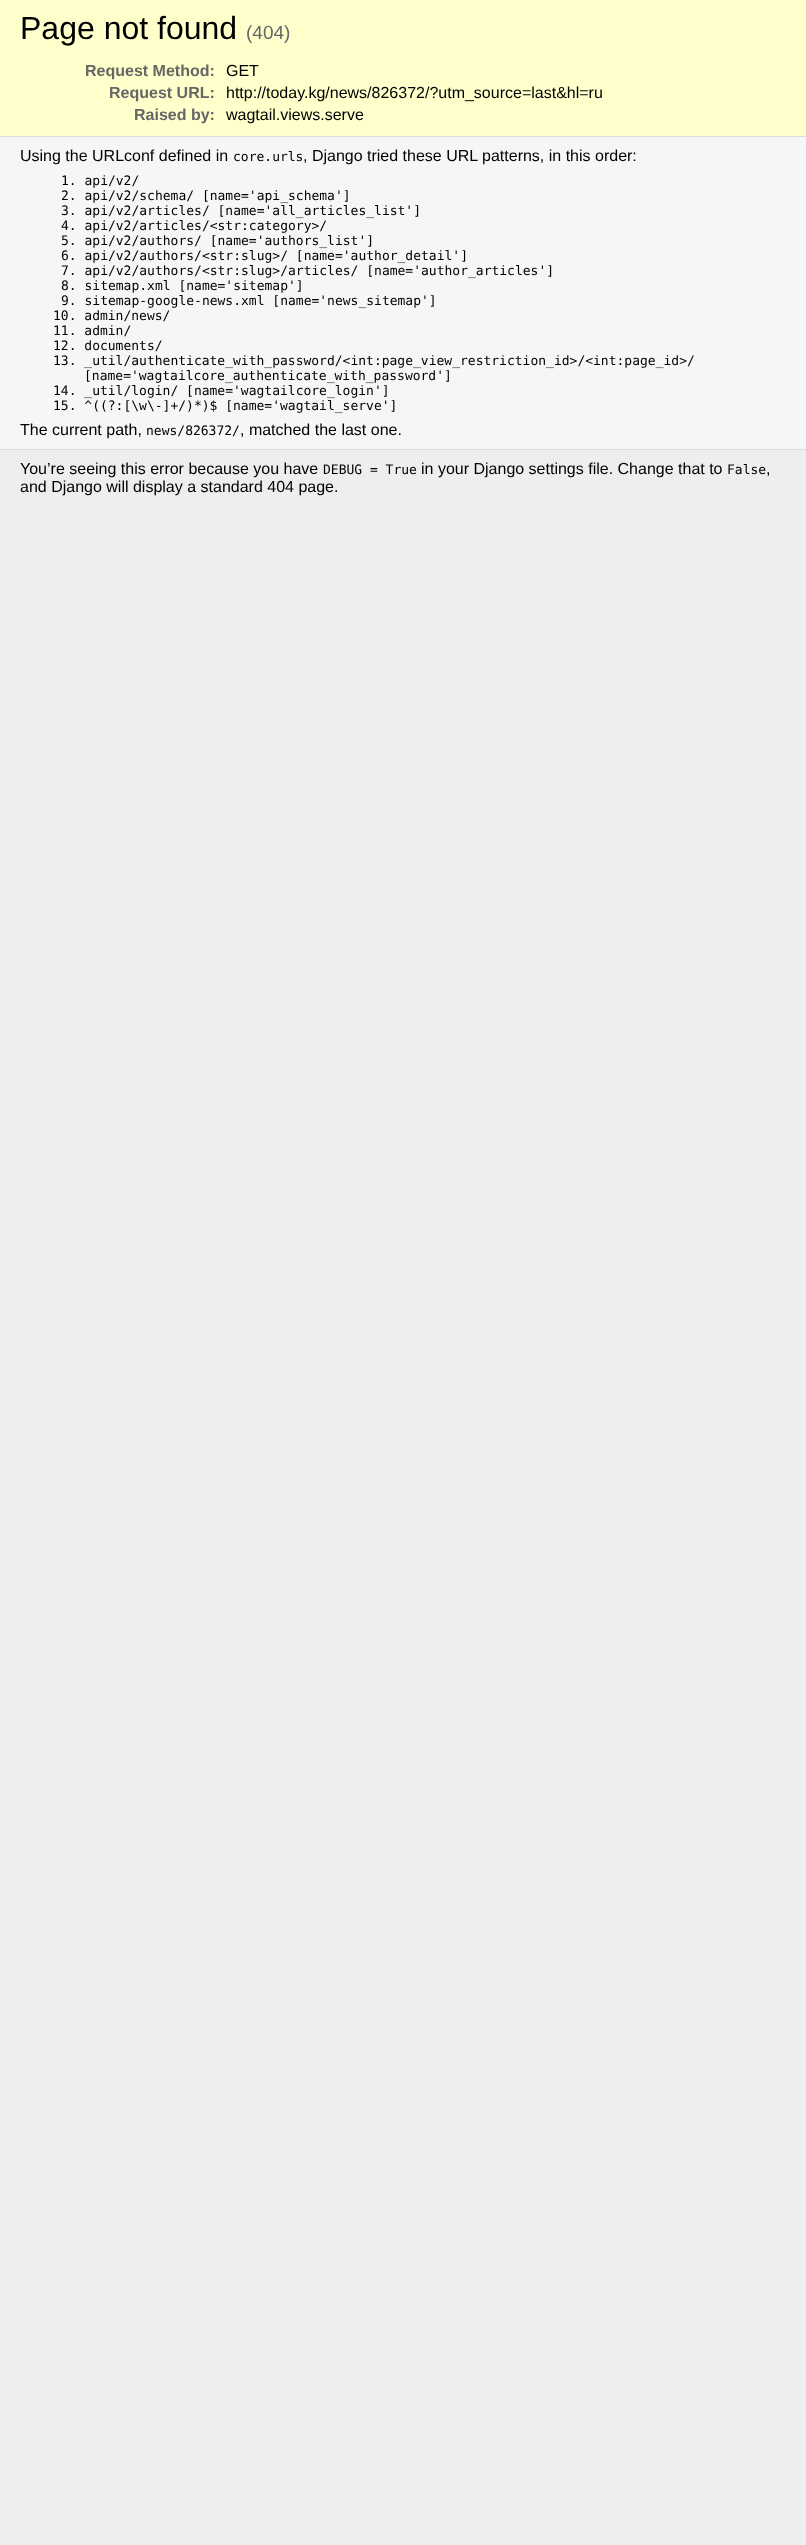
<!DOCTYPE html>
<meta charset="utf-8">
<style>body { margin: 0 } canvas { display: block }</style>
<canvas id="canvas" width="806" height="2545"></canvas>
<script>
window.onload = function () {
    const canvas = document.getElementById('canvas');
    const context = canvas.getContext('2d');
    context.miterLimit = 4;
    context.fontKerning = 'normal';

    context.fillStyle = 'rgb(238, 238, 238)';
    context.fillRect(0, 0, 806, 2545);
    context.fillStyle = 'rgb(255, 255, 204)';
    context.fillRect(0, 0, 806, 136);
    context.fillStyle = 'rgb(221, 221, 221)';
    context.fillRect(0, 136, 806, 1);
    context.fillStyle = 'rgb(246, 246, 246)';
    context.fillRect(0, 137, 806, 312);
    context.fillStyle = 'rgb(221, 221, 221)';
    context.fillRect(0, 449, 806, 1);
    context.font = '32px Liberation Sans';
    context.fillStyle = 'rgb(0, 0, 0)';
    context.fillText('Page not found', 20, 39);
    context.font = '19px Liberation Sans';
    context.fillStyle = 'rgb(102, 102, 102)';
    context.fillText('(404)', 246, 39);
    context.font = 'bold 16px Liberation Sans';
    context.fillText('Request Method:', 85, 76);
    context.font = '16px Liberation Sans';
    context.fillStyle = 'rgb(0, 0, 0)';
    context.fillText('GET', 226, 76);
    context.font = 'bold 16px Liberation Sans';
    context.fillStyle = 'rgb(102, 102, 102)';
    context.fillText('Request URL:', 109, 98);
    context.font = '16px Liberation Sans';
    context.fillStyle = 'rgb(0, 0, 0)';
    context.fillText('http://today.kg/news/826372/?utm_source=last&hl=ru', 226, 98);
    context.font = 'bold 16px Liberation Sans';
    context.fillStyle = 'rgb(102, 102, 102)';
    context.fillText('Raised by:', 134, 120);
    context.font = '16px Liberation Sans';
    context.fillStyle = 'rgb(0, 0, 0)';
    context.fillText('wagtail.views.serve', 226, 120);
    context.fillText('Using the URLconf defined in', 20, 161);
    context.font = '13px DejaVu Sans Mono';
    context.fillText('core.urls', 233, 161);
    context.font = '16px Liberation Sans';
    context.fillText(', Django tried these URL patterns, in this order:', 303, 161);
    context.font = '13px DejaVu Sans Mono';
    context.fillText('1. api/v2/', 61, 185);
    context.fillText('2. api/v2/schema/ [name=\'api_schema\']', 61, 200);
    context.fillText('3. api/v2/articles/ [name=\'all_articles_list\']', 61, 215);
    context.fillText('4. api/v2/articles/<str:category>/', 61, 230);
    context.fillText('5. api/v2/authors/ [name=\'authors_list\']', 61, 245);
    context.fillText('6. api/v2/authors/<str:slug>/ [name=\'author_detail\']', 61, 260);
    context.fillText('7. api/v2/authors/<str:slug>/articles/ [name=\'author_articles\']', 61, 275);
    context.fillText('8. sitemap.xml [name=\'sitemap\']', 61, 290);
    context.fillText('9. sitemap-google-news.xml [name=\'news_sitemap\']', 61, 305);
    context.fillText('10. admin/news/', 53, 320);
    context.fillText('11. admin/', 53, 335);
    context.fillText('12. documents/', 53, 350);
    context.fillText('13. _util/authenticate_with_password/<int:page_view_restriction_id>/<int:page_id>/', 53, 365);
    context.fillText('[name=\'wagtailcore_authenticate_with_password\']', 84, 380);
    context.fillText('14. _util/login/ [name=\'wagtailcore_login\']', 53, 395);
    context.fillText('15. ^((?:[\\w\\-]+/)*)$ [name=\'wagtail_serve\']', 53, 410);
    context.font = '16px Liberation Sans';
    context.fillText('The current path,', 20, 435);
    context.font = '13px DejaVu Sans Mono';
    context.fillText('news/826372/', 146, 435);
    context.font = '16px Liberation Sans';
    context.fillText(', matched the last one.', 240, 435);
    context.fillText('You’re seeing this error because you have', 20, 474);
    context.font = '13px DejaVu Sans Mono';
    context.fillText('DEBUG = True', 323, 474);
    context.font = '16px Liberation Sans';
    context.fillText('in your Django settings file. Change that to', 421, 474);
    context.font = '13px DejaVu Sans Mono';
    context.fillText('False', 727, 474);
    context.font = '16px Liberation Sans';
    context.fillText(',', 766, 474);
    context.fillText('and Django will display a standard 404 page.', 20, 492);
};
</script>
